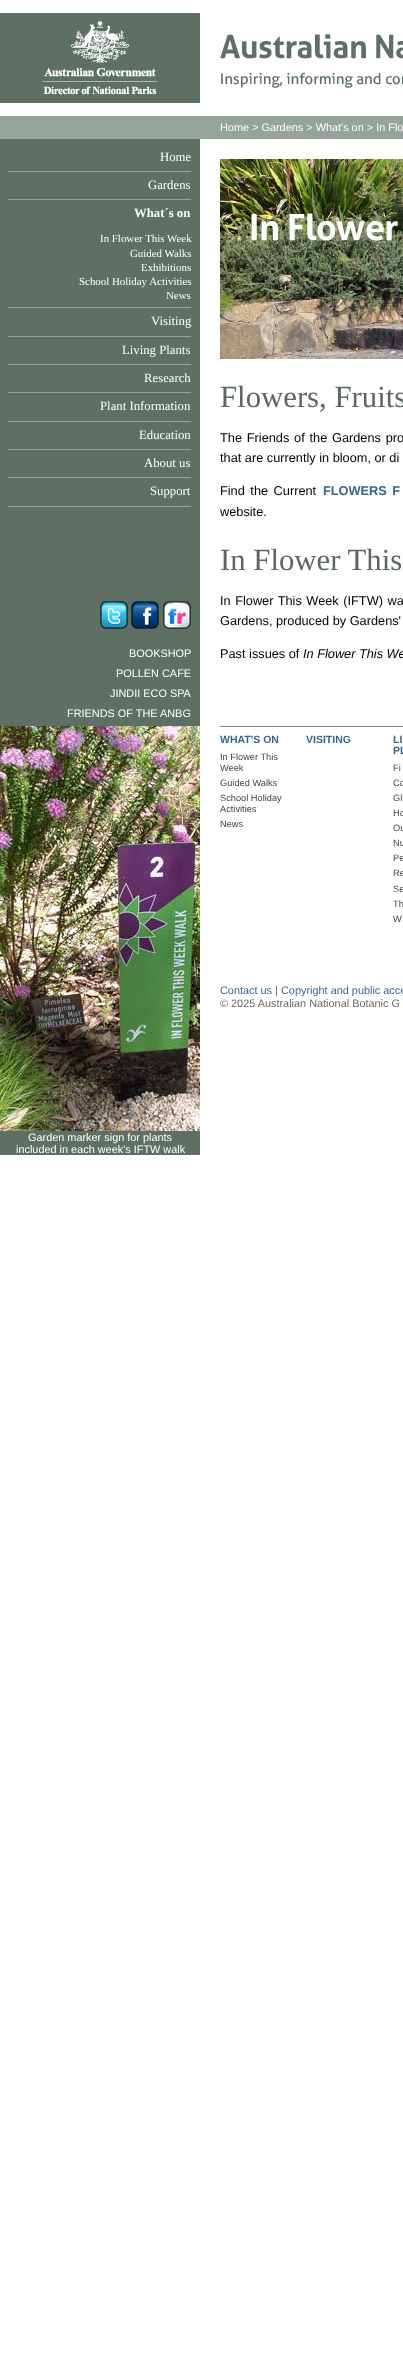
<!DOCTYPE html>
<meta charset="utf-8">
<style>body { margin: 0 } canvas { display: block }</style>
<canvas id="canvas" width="403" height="2374"></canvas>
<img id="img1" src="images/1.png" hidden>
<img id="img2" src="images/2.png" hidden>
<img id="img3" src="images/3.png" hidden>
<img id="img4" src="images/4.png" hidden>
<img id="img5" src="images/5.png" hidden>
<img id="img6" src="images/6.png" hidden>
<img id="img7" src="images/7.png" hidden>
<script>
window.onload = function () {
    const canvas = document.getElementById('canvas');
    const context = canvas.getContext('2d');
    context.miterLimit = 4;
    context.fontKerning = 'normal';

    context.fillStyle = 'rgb(255, 255, 255)';
    context.fillRect(0, 0, 403, 2374);
    context.drawImage(document.getElementById('img1'), 0, 13, 200, 90);
    context.drawImage(document.getElementById('img2'), 220, 34, 183, 54);
    context.fillStyle = 'rgb(93, 112, 99)';
    context.fillRect(0, 139, 200, 1016);
    context.fillStyle = 'rgb(150, 163, 154)';
    context.fillRect(0, 116, 403, 23);
    context.fillRect(8, 171, 183, 1);
    context.fillRect(8, 199, 183, 1);
    context.fillRect(8, 307, 183, 1);
    context.fillRect(8, 336, 183, 1);
    context.fillRect(8, 364, 183, 1);
    context.fillRect(8, 392, 183, 1);
    context.fillRect(8, 421, 183, 1);
    context.fillRect(8, 449, 183, 1);
    context.fillRect(8, 477, 183, 1);
    context.fillRect(8, 506, 183, 1);
    context.drawImage(document.getElementById('img3'), 100, 601, 28, 28);
    context.drawImage(document.getElementById('img4'), 131, 601, 28, 28);
    context.drawImage(document.getElementById('img5'), 163, 601, 28, 28);
    context.drawImage(document.getElementById('img6'), 0, 726, 200, 405);
    context.drawImage(document.getElementById('img7'), 220, 159, 183, 200);
    context.fillStyle = 'rgb(126, 140, 139)';
    context.fillRect(220, 726, 183, 1);
    context.font = '12.75px Liberation Serif';
    context.fillStyle = 'rgb(255, 255, 255)';
    context.fillText('Home', 160, 161);
    context.fillText('Gardens', 148, 189);
    context.font = 'bold 12.75px Liberation Serif';
    context.fillText('What´s on', 134, 217);
    context.font = '10.9px Liberation Serif';
    context.fillText('In Flower This Week', 100, 242);
    context.fillText('Guided Walks', 130, 257);
    context.fillText('Exhibitions', 141, 271);
    context.fillText('School Holiday Activities', 79, 285);
    context.fillText('News', 166, 299);
    context.font = '12.75px Liberation Serif';
    context.fillText('Visiting', 151, 325);
    context.fillText('Living Plants', 122, 354);
    context.fillText('Research', 144, 382);
    context.fillText('Plant Information', 100, 410);
    context.fillText('Education', 139, 439);
    context.fillText('About us', 144, 467);
    context.fillText('Support', 150, 495);
    context.font = '10.9px Liberation Sans';
    context.fillText('BOOKSHOP', 129, 657);
    context.fillText('POLLEN CAFE', 116, 677);
    context.fillText('JINDII ECO SPA', 110, 697);
    context.fillText('FRIENDS OF THE ANBG', 67, 717);
    context.fillText('Garden marker sign for plants', 28, 1141);
    context.fillText('included in each week\'s IFTW walk', 16, 1153);
    context.fillText('Home > Gardens > What\'s on > In Flo', 220, 131);
    context.font = '30.75px Liberation Serif';
    context.fillStyle = 'rgb(92, 102, 101)';
    context.fillText('Flowers, Fruits', 220, 407);
    context.wordSpacing = '1.25px';
    context.font = '12.75px Liberation Sans';
    context.fillStyle = 'rgb(0, 0, 0)';
    context.fillText('The Friends of the Gardens pro', 220, 442);
    context.wordSpacing = '0px';
    context.fillText('that are currently in bloom, or di', 220, 462);
    context.wordSpacing = '2px';
    context.fillText('Find the Current', 220, 495);
    context.font = 'bold 12.75px Liberation Sans';
    context.fillStyle = 'rgb(59, 100, 140)';
    context.fillText('FLOWERS F', 323, 495);
    context.wordSpacing = '0px';
    context.font = '12.75px Liberation Sans';
    context.fillStyle = 'rgb(0, 0, 0)';
    context.fillText('website.', 220, 516);
    context.font = '30.75px Liberation Serif';
    context.fillStyle = 'rgb(92, 102, 101)';
    context.fillText('In Flower This', 220, 570);
    context.wordSpacing = '1px';
    context.font = '12.75px Liberation Sans';
    context.fillStyle = 'rgb(0, 0, 0)';
    context.fillText('In Flower This Week (IFTW) wa', 220, 605);
    context.wordSpacing = '0px';
    context.fillText('Gardens, produced by Gardens\'', 220, 625);
    context.fillText('Past issues of', 220, 658);
    context.font = 'italic 12.75px Liberation Sans';
    context.fillText('In Flower This We', 303, 658);
    context.font = 'bold 10.5px Liberation Sans';
    context.fillStyle = 'rgb(59, 100, 140)';
    context.fillText('WHAT\'S ON', 220, 743);
    context.font = '9.25px Liberation Sans';
    context.fillStyle = 'rgb(68, 68, 68)';
    context.fillText('In Flower This', 220, 760);
    context.fillText('Week', 220, 771);
    context.fillText('Guided Walks', 220, 786);
    context.fillText('School Holiday', 220, 801);
    context.fillText('Activities', 220, 812);
    context.fillText('News', 220, 827);
    context.font = 'bold 10.5px Liberation Sans';
    context.fillStyle = 'rgb(59, 100, 140)';
    context.fillText('VISITING', 306, 743);
    context.fillText('LI', 393, 743);
    context.fillText('PL', 393, 754);
    context.font = '9.25px Liberation Sans';
    context.fillStyle = 'rgb(68, 68, 68)';
    context.fillText('Fi', 393, 771);
    context.fillText('Co', 393, 786);
    context.fillText('Gl', 393, 801);
    context.fillText('Ho', 393, 816);
    context.fillText('Ou', 393, 831);
    context.fillText('Nu', 393, 846);
    context.fillText('Pe', 393, 861);
    context.fillText('Re', 393, 876);
    context.fillText('Se', 393, 892);
    context.fillText('Th', 393, 907);
    context.fillText('W', 393, 922);
    context.font = '10.9px Liberation Sans';
    context.fillStyle = 'rgb(59, 100, 140)';
    context.fillText('Contact us', 220, 994);
    context.fillStyle = 'rgb(102, 102, 102)';
    context.fillText('|', 275, 994);
    context.fillStyle = 'rgb(59, 100, 140)';
    context.fillText('Copyright and public acce', 281, 994);
    context.fillStyle = 'rgb(102, 102, 102)';
    context.fillText('© 2025 Australian National Botanic G', 220, 1007);
};
</script>
